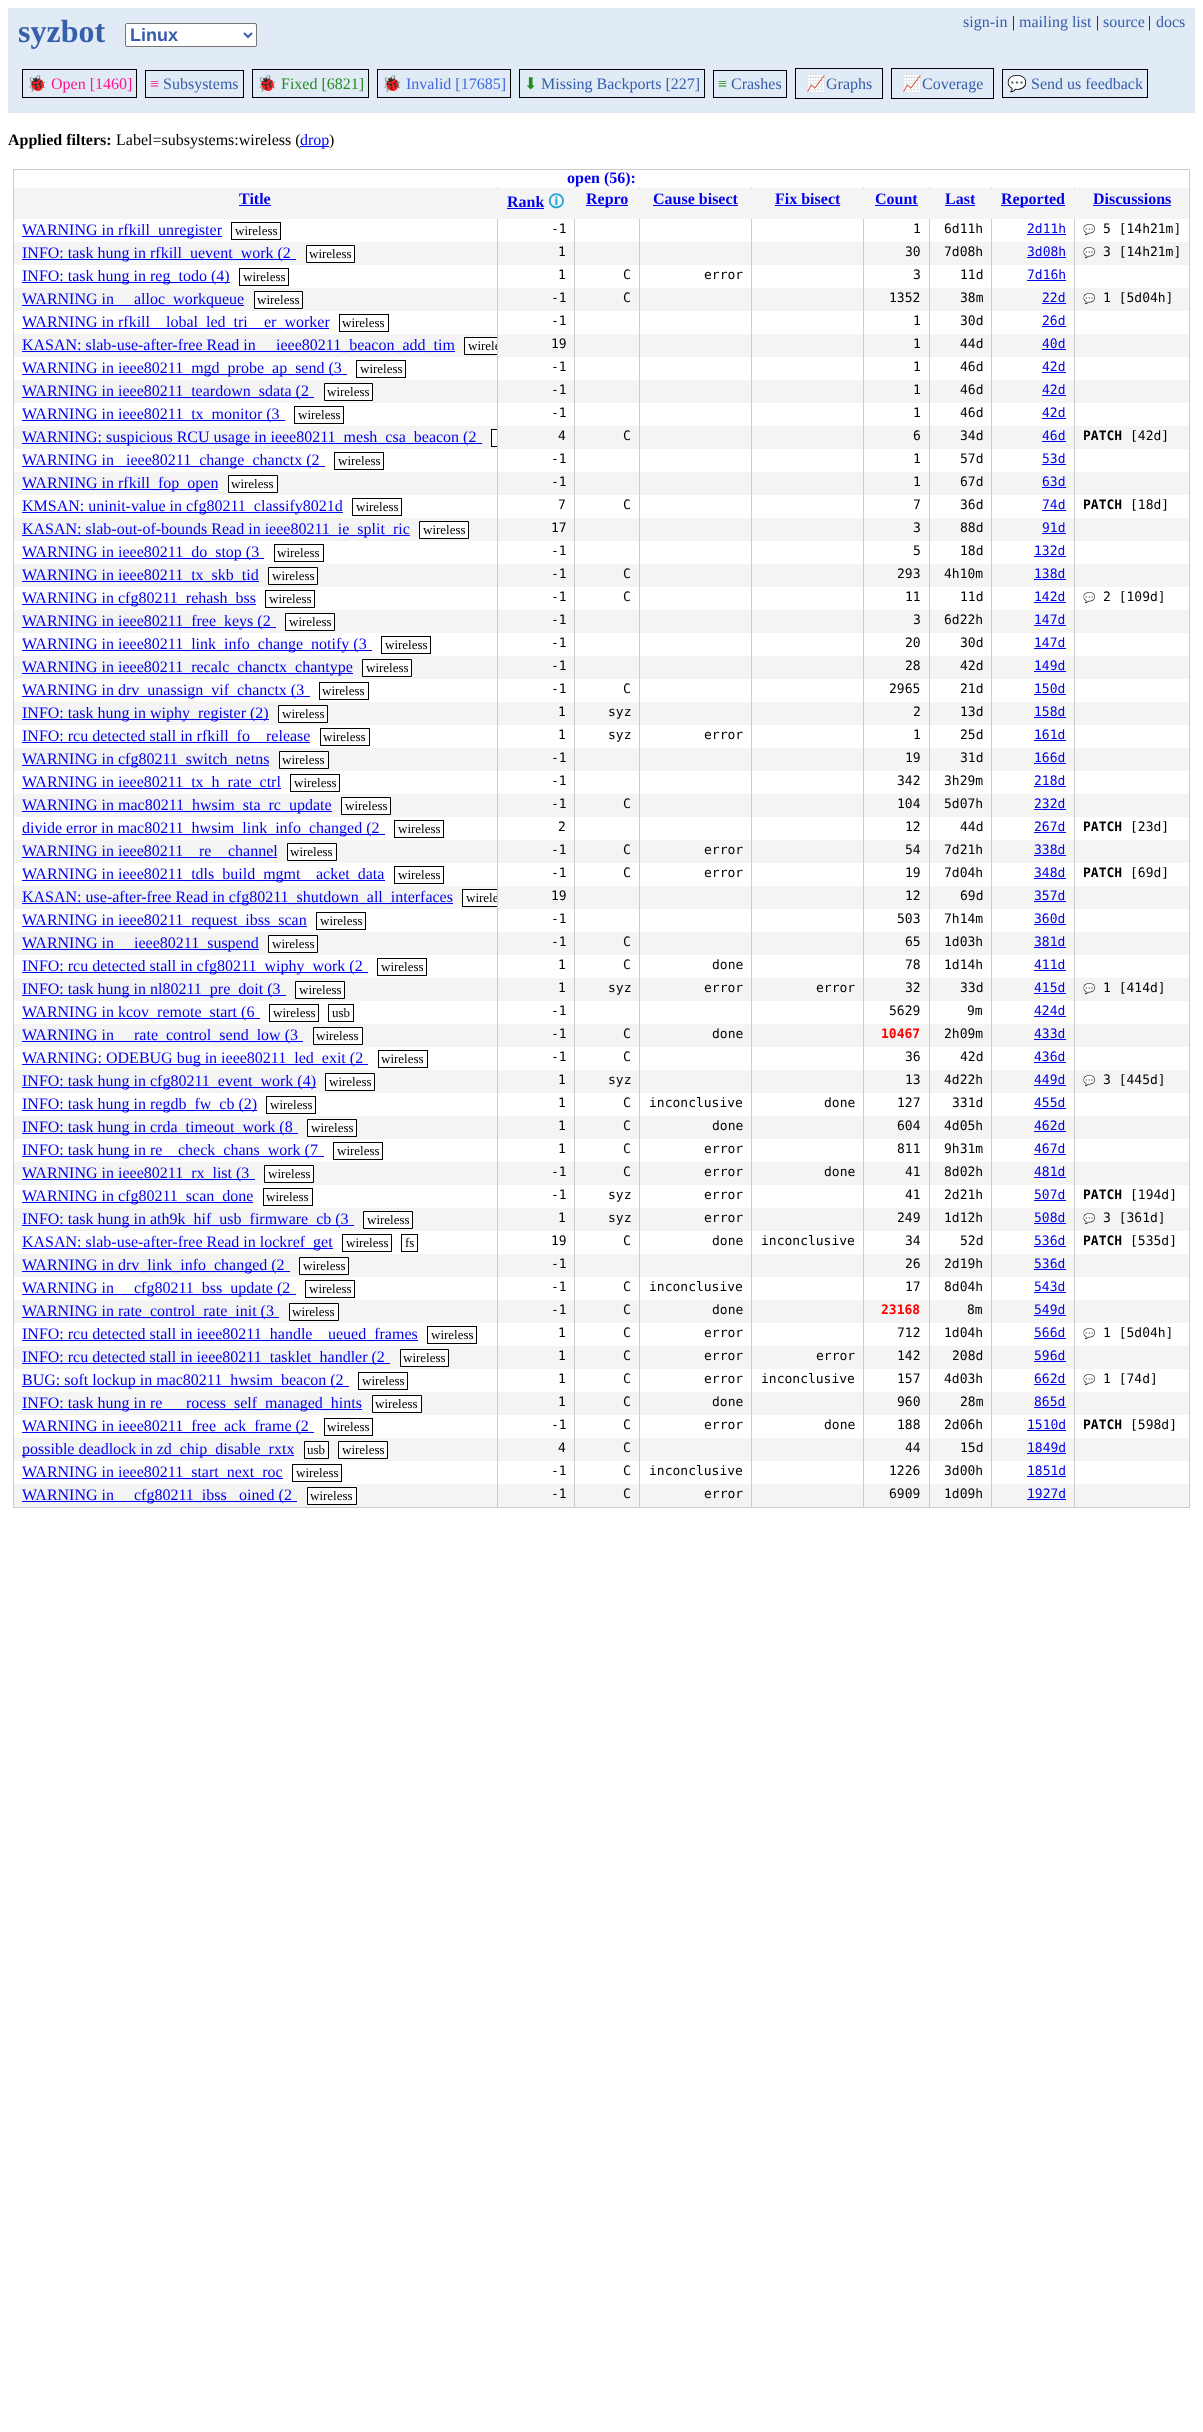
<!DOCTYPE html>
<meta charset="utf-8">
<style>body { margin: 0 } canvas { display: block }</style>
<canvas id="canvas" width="1203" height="2432"></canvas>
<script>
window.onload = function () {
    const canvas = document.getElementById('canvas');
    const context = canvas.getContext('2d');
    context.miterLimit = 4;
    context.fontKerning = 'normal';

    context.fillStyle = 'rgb(255, 255, 255)';
    context.fillRect(0, 0, 1203, 2432);
    context.fillStyle = 'rgb(224, 235, 245)';
    context.fillRect(8, 8, 1187, 105);
    context.fillStyle = 'rgb(255, 255, 255)';
    context.beginPath();
    context.roundRect(125.5, 23.5, 131, 23, 1.5);
    context.fill();
    context.strokeStyle = 'rgb(118, 118, 118)';
    context.stroke();
    context.beginPath();
    context.moveTo(244, 33);
    context.lineTo(248, 37);
    context.lineTo(252, 33);
    context.strokeStyle = 'rgb(55, 94, 171)';
    context.lineWidth = 2;
    context.stroke();
    context.strokeStyle = 'rgb(0, 0, 0)';
    context.lineWidth = 1;
    context.strokeRect(22.5, 69.5, 114, 28);
    context.strokeRect(145.5, 70.5, 98, 27);
    context.strokeRect(252.5, 69.5, 116, 28);
    context.strokeRect(377.5, 69.5, 133, 28);
    context.strokeRect(519.5, 69.5, 185, 28);
    context.strokeRect(713.5, 70.5, 73, 27);
    context.strokeRect(795.5, 68.5, 87, 30);
    context.strokeRect(891.5, 68.5, 102, 30);
    context.strokeRect(1002.5, 69.5, 145, 28);
    context.fillStyle = 'rgb(0, 0, 238)';
    context.fillRect(300, 146, 29, 1);
    context.fillStyle = 'rgb(204, 204, 204)';
    context.fillRect(13, 169, 1177, 1);
    context.fillRect(1189, 169, 1, 1339);
    context.fillRect(13, 1507, 1177, 1);
    context.fillRect(13, 169, 1, 1339);
    context.fillStyle = 'rgb(244, 244, 244)';
    context.fillRect(14, 242, 1175, 23);
    context.fillRect(14, 288, 1175, 23);
    context.fillRect(14, 334, 1175, 23);
    context.fillRect(14, 380, 1175, 23);
    context.fillRect(14, 426, 1175, 23);
    context.fillRect(14, 472, 1175, 23);
    context.fillRect(14, 518, 1175, 23);
    context.fillRect(14, 564, 1175, 23);
    context.fillRect(14, 610, 1175, 23);
    context.fillRect(14, 656, 1175, 23);
    context.fillRect(14, 702, 1175, 23);
    context.fillRect(14, 748, 1175, 23);
    context.fillRect(14, 794, 1175, 23);
    context.fillRect(14, 840, 1175, 23);
    context.fillRect(14, 886, 1175, 23);
    context.fillRect(14, 932, 1175, 23);
    context.fillRect(14, 978, 1175, 23);
    context.fillRect(14, 1024, 1175, 23);
    context.fillRect(14, 1070, 1175, 23);
    context.fillRect(14, 1116, 1175, 23);
    context.fillRect(14, 1162, 1175, 23);
    context.fillRect(14, 1208, 1175, 23);
    context.fillRect(14, 1254, 1175, 23);
    context.fillRect(14, 1300, 1175, 23);
    context.fillRect(14, 1346, 1175, 23);
    context.fillRect(14, 1392, 1175, 23);
    context.fillRect(14, 1438, 1175, 23);
    context.fillRect(14, 1484, 1175, 23);
    context.fillStyle = 'rgb(204, 204, 204)';
    context.fillRect(497, 187, 1, 1320);
    context.fillRect(574, 187, 1, 1320);
    context.fillRect(639, 187, 1, 1320);
    context.fillRect(751, 187, 1, 1320);
    context.fillRect(863, 187, 1, 1320);
    context.fillRect(929, 187, 1, 1320);
    context.fillRect(991, 187, 1, 1320);
    context.fillRect(1074, 187, 1, 1320);
    context.fillStyle = 'rgb(244, 244, 244)';
    context.fillRect(14, 188, 1175, 31);
    context.fillStyle = 'rgb(0, 0, 238)';
    context.fillRect(239, 205, 32, 1);
    context.fillRect(507, 208, 37, 1);
    context.fillRect(586, 205, 42, 1);
    context.fillRect(653, 205, 85, 1);
    context.fillRect(775, 205, 65, 1);
    context.fillRect(875, 205, 43, 1);
    context.fillRect(945, 205, 30, 1);
    context.fillRect(1001, 205, 64, 1);
    context.fillRect(1093, 205, 78, 1);
    context.fillRect(22, 236, 200, 1);
    context.strokeRect(231.5, 222.5, 49, 17);
    context.fillRect(1027, 234, 39, 1);
    context.fillRect(22, 259, 274, 1);
    context.fillStyle = 'rgb(255, 255, 255)';
    context.beginPath();
    context.rect(306.5, 245.5, 48, 17);
    context.fill();
    context.stroke();
    context.fillStyle = 'rgb(0, 0, 238)';
    context.fillRect(1027, 257, 39, 1);
    context.fillRect(22, 282, 208, 1);
    context.strokeRect(239.5, 268.5, 49, 17);
    context.fillRect(1027, 280, 39, 1);
    context.fillRect(22, 305, 222, 1);
    context.fillStyle = 'rgb(255, 255, 255)';
    context.beginPath();
    context.rect(254.5, 291.5, 48, 17);
    context.fill();
    context.stroke();
    context.fillStyle = 'rgb(0, 0, 238)';
    context.fillRect(1042, 303, 24, 1);
    context.fillRect(22, 328, 307, 1);
    context.strokeRect(339.5, 314.5, 49, 17);
    context.fillRect(1042, 326, 24, 1);
    context.fillRect(22, 351, 433, 1);
    context.fillStyle = 'rgb(255, 255, 255)';
    context.fillRect(465, 338, 32, 16);
    context.save();
    context.beginPath();
    context.rect(15, 334, 482, 23);
    context.clip();
    context.strokeRect(464.5, 337.5, 49, 17);
    context.restore();
    context.fillStyle = 'rgb(0, 0, 238)';
    context.fillRect(1042, 349, 24, 1);
    context.fillRect(22, 374, 325, 1);
    context.strokeRect(356.5, 360.5, 49, 17);
    context.fillRect(1042, 372, 24, 1);
    context.fillRect(22, 397, 292, 1);
    context.fillStyle = 'rgb(255, 255, 255)';
    context.beginPath();
    context.rect(324.5, 383.5, 48, 17);
    context.fill();
    context.stroke();
    context.fillStyle = 'rgb(0, 0, 238)';
    context.fillRect(1042, 395, 24, 1);
    context.fillRect(22, 420, 263, 1);
    context.strokeRect(294.5, 406.5, 49, 17);
    context.fillRect(1042, 418, 24, 1);
    context.fillRect(22, 443, 460, 1);
    context.fillStyle = 'rgb(255, 255, 255)';
    context.fillRect(492, 429, 5, 18);
    context.save();
    context.beginPath();
    context.rect(15, 426, 482, 23);
    context.clip();
    context.strokeRect(491.5, 429.5, 49, 17);
    context.restore();
    context.fillStyle = 'rgb(0, 0, 238)';
    context.fillRect(1042, 441, 24, 1);
    context.fillRect(22, 466, 303, 1);
    context.strokeRect(334.5, 452.5, 49, 17);
    context.fillRect(1042, 464, 24, 1);
    context.fillRect(22, 489, 196, 1);
    context.fillStyle = 'rgb(255, 255, 255)';
    context.beginPath();
    context.rect(228.5, 475.5, 49, 17);
    context.fill();
    context.stroke();
    context.fillStyle = 'rgb(0, 0, 238)';
    context.fillRect(1042, 487, 24, 1);
    context.fillRect(22, 512, 321, 1);
    context.strokeRect(352.5, 498.5, 49, 17);
    context.fillRect(1042, 510, 24, 1);
    context.fillRect(22, 535, 388, 1);
    context.fillStyle = 'rgb(255, 255, 255)';
    context.beginPath();
    context.rect(419.5, 521.5, 49, 17);
    context.fill();
    context.stroke();
    context.fillStyle = 'rgb(0, 0, 238)';
    context.fillRect(1042, 533, 24, 1);
    context.fillRect(22, 558, 242, 1);
    context.strokeRect(274.5, 544.5, 49, 17);
    context.fillRect(1034, 556, 32, 1);
    context.fillRect(22, 581, 237, 1);
    context.fillStyle = 'rgb(255, 255, 255)';
    context.beginPath();
    context.rect(268.5, 567.5, 49, 17);
    context.fill();
    context.stroke();
    context.fillStyle = 'rgb(0, 0, 238)';
    context.fillRect(1034, 579, 32, 1);
    context.fillRect(22, 604, 234, 1);
    context.strokeRect(265.5, 590.5, 49, 17);
    context.fillRect(1034, 602, 32, 1);
    context.fillRect(22, 627, 254, 1);
    context.fillStyle = 'rgb(255, 255, 255)';
    context.beginPath();
    context.rect(285.5, 613.5, 49, 17);
    context.fill();
    context.stroke();
    context.fillStyle = 'rgb(0, 0, 238)';
    context.fillRect(1034, 625, 32, 1);
    context.fillRect(22, 650, 350, 1);
    context.strokeRect(381.5, 636.5, 49, 17);
    context.fillRect(1034, 648, 32, 1);
    context.fillRect(22, 673, 331, 1);
    context.fillStyle = 'rgb(255, 255, 255)';
    context.beginPath();
    context.rect(362.5, 659.5, 49, 17);
    context.fill();
    context.stroke();
    context.fillStyle = 'rgb(0, 0, 238)';
    context.fillRect(1034, 671, 32, 1);
    context.fillRect(22, 696, 288, 1);
    context.strokeRect(319.5, 682.5, 49, 17);
    context.fillRect(1034, 694, 32, 1);
    context.fillRect(22, 719, 247, 1);
    context.fillStyle = 'rgb(255, 255, 255)';
    context.beginPath();
    context.rect(278.5, 705.5, 49, 17);
    context.fill();
    context.stroke();
    context.fillStyle = 'rgb(0, 0, 238)';
    context.fillRect(1034, 717, 32, 1);
    context.fillRect(22, 742, 288, 1);
    context.strokeRect(320.5, 728.5, 49, 17);
    context.fillRect(1034, 740, 32, 1);
    context.fillRect(22, 765, 247, 1);
    context.fillStyle = 'rgb(255, 255, 255)';
    context.beginPath();
    context.rect(279.5, 751.5, 49, 17);
    context.fill();
    context.stroke();
    context.fillStyle = 'rgb(0, 0, 238)';
    context.fillRect(1034, 763, 32, 1);
    context.fillRect(22, 788, 259, 1);
    context.strokeRect(290.5, 774.5, 49, 17);
    context.fillRect(1034, 786, 32, 1);
    context.fillRect(22, 811, 310, 1);
    context.fillStyle = 'rgb(255, 255, 255)';
    context.beginPath();
    context.rect(341.5, 797.5, 49, 17);
    context.fill();
    context.stroke();
    context.fillStyle = 'rgb(0, 0, 238)';
    context.fillRect(1034, 809, 32, 1);
    context.fillRect(22, 834, 363, 1);
    context.strokeRect(394.5, 820.5, 49, 17);
    context.fillRect(1034, 832, 32, 1);
    context.fillRect(22, 857, 255, 1);
    context.fillStyle = 'rgb(255, 255, 255)';
    context.beginPath();
    context.rect(287.5, 843.5, 49, 17);
    context.fill();
    context.stroke();
    context.fillStyle = 'rgb(0, 0, 238)';
    context.fillRect(1034, 855, 32, 1);
    context.fillRect(22, 880, 363, 1);
    context.strokeRect(394.5, 866.5, 49, 17);
    context.fillRect(1034, 878, 32, 1);
    context.fillRect(22, 903, 431, 1);
    context.fillStyle = 'rgb(255, 255, 255)';
    context.fillRect(463, 890, 34, 16);
    context.save();
    context.beginPath();
    context.rect(15, 886, 482, 23);
    context.clip();
    context.strokeRect(462.5, 889.5, 49, 17);
    context.restore();
    context.fillStyle = 'rgb(0, 0, 238)';
    context.fillRect(1034, 901, 32, 1);
    context.fillRect(22, 926, 285, 1);
    context.strokeRect(316.5, 912.5, 49, 17);
    context.fillRect(1034, 924, 32, 1);
    context.fillRect(22, 949, 237, 1);
    context.fillStyle = 'rgb(255, 255, 255)';
    context.beginPath();
    context.rect(268.5, 935.5, 49, 17);
    context.fill();
    context.stroke();
    context.fillStyle = 'rgb(0, 0, 238)';
    context.fillRect(1034, 947, 32, 1);
    context.fillRect(22, 972, 346, 1);
    context.strokeRect(377.5, 958.5, 49, 17);
    context.fillRect(1034, 970, 32, 1);
    context.fillRect(22, 995, 264, 1);
    context.fillStyle = 'rgb(255, 255, 255)';
    context.beginPath();
    context.rect(295.5, 981.5, 49, 17);
    context.fill();
    context.stroke();
    context.fillStyle = 'rgb(0, 0, 238)';
    context.fillRect(1034, 993, 32, 1);
    context.fillRect(22, 1018, 238, 1);
    context.strokeRect(269.5, 1004.5, 49, 17);
    context.strokeRect(328.5, 1004.5, 25, 17);
    context.fillRect(1034, 1016, 32, 1);
    context.fillRect(22, 1041, 281, 1);
    context.fillStyle = 'rgb(255, 255, 255)';
    context.beginPath();
    context.rect(313.5, 1027.5, 49, 17);
    context.fill();
    context.stroke();
    context.fillStyle = 'rgb(0, 0, 238)';
    context.fillRect(1034, 1039, 32, 1);
    context.fillRect(22, 1064, 346, 1);
    context.strokeRect(378.5, 1050.5, 49, 17);
    context.fillRect(1034, 1062, 32, 1);
    context.fillRect(22, 1087, 294, 1);
    context.fillStyle = 'rgb(255, 255, 255)';
    context.beginPath();
    context.rect(325.5, 1073.5, 49, 17);
    context.fill();
    context.stroke();
    context.fillStyle = 'rgb(0, 0, 238)';
    context.fillRect(1034, 1085, 32, 1);
    context.fillRect(22, 1110, 235, 1);
    context.strokeRect(266.5, 1096.5, 49, 17);
    context.fillRect(1034, 1108, 32, 1);
    context.fillRect(22, 1133, 276, 1);
    context.fillStyle = 'rgb(255, 255, 255)';
    context.beginPath();
    context.rect(307.5, 1119.5, 49, 17);
    context.fill();
    context.stroke();
    context.fillStyle = 'rgb(0, 0, 238)';
    context.fillRect(1034, 1131, 32, 1);
    context.fillRect(22, 1156, 302, 1);
    context.strokeRect(333.5, 1142.5, 49, 17);
    context.fillRect(1034, 1154, 32, 1);
    context.fillRect(22, 1179, 233, 1);
    context.fillStyle = 'rgb(255, 255, 255)';
    context.beginPath();
    context.rect(264.5, 1165.5, 49, 17);
    context.fill();
    context.stroke();
    context.fillStyle = 'rgb(0, 0, 238)';
    context.fillRect(1034, 1177, 32, 1);
    context.fillRect(22, 1202, 231, 1);
    context.strokeRect(263.5, 1188.5, 49, 17);
    context.fillRect(1034, 1200, 32, 1);
    context.fillRect(22, 1225, 332, 1);
    context.fillStyle = 'rgb(255, 255, 255)';
    context.beginPath();
    context.rect(363.5, 1211.5, 49, 17);
    context.fill();
    context.stroke();
    context.fillStyle = 'rgb(0, 0, 238)';
    context.fillRect(1034, 1223, 32, 1);
    context.fillRect(22, 1248, 311, 1);
    context.strokeRect(342.5, 1234.5, 49, 17);
    context.strokeRect(401.5, 1234.5, 16, 17);
    context.fillRect(1034, 1246, 32, 1);
    context.fillRect(22, 1271, 268, 1);
    context.fillStyle = 'rgb(255, 255, 255)';
    context.beginPath();
    context.rect(299.5, 1257.5, 49, 17);
    context.fill();
    context.stroke();
    context.fillStyle = 'rgb(0, 0, 238)';
    context.fillRect(1034, 1269, 32, 1);
    context.fillRect(22, 1294, 274, 1);
    context.strokeRect(305.5, 1280.5, 49, 17);
    context.fillRect(1034, 1292, 32, 1);
    context.fillRect(22, 1317, 257, 1);
    context.fillStyle = 'rgb(255, 255, 255)';
    context.beginPath();
    context.rect(289.5, 1303.5, 49, 17);
    context.fill();
    context.stroke();
    context.fillStyle = 'rgb(0, 0, 238)';
    context.fillRect(1034, 1315, 32, 1);
    context.fillRect(22, 1340, 396, 1);
    context.strokeRect(427.5, 1326.5, 49, 17);
    context.fillRect(1034, 1338, 32, 1);
    context.fillRect(22, 1363, 368, 1);
    context.fillStyle = 'rgb(255, 255, 255)';
    context.beginPath();
    context.rect(400.5, 1349.5, 48, 17);
    context.fill();
    context.stroke();
    context.fillStyle = 'rgb(0, 0, 238)';
    context.fillRect(1034, 1361, 32, 1);
    context.fillRect(22, 1386, 327, 1);
    context.strokeRect(358.5, 1372.5, 49, 17);
    context.fillRect(1034, 1384, 32, 1);
    context.fillRect(22, 1409, 340, 1);
    context.fillStyle = 'rgb(255, 255, 255)';
    context.beginPath();
    context.rect(372.5, 1395.5, 49, 17);
    context.fill();
    context.stroke();
    context.fillStyle = 'rgb(0, 0, 238)';
    context.fillRect(1034, 1407, 32, 1);
    context.fillRect(22, 1432, 292, 1);
    context.strokeRect(324.5, 1418.5, 48, 17);
    context.fillRect(1027, 1430, 39, 1);
    context.fillRect(22, 1455, 272, 1);
    context.fillStyle = 'rgb(255, 255, 255)';
    context.beginPath();
    context.rect(304.5, 1441.5, 24, 17);
    context.fill();
    context.stroke();
    context.beginPath();
    context.rect(338.5, 1441.5, 49, 17);
    context.fill();
    context.stroke();
    context.fillStyle = 'rgb(0, 0, 238)';
    context.fillRect(1027, 1453, 39, 1);
    context.fillRect(22, 1478, 261, 1);
    context.strokeRect(292.5, 1464.5, 49, 17);
    context.fillRect(1027, 1476, 39, 1);
    context.fillRect(22, 1501, 275, 1);
    context.fillStyle = 'rgb(255, 255, 255)';
    context.beginPath();
    context.rect(307.5, 1487.5, 49, 17);
    context.fill();
    context.stroke();
    context.fillStyle = 'rgb(0, 0, 238)';
    context.fillRect(1027, 1499, 39, 1);
    context.font = 'bold 32px Liberation Serif';
    context.fillStyle = 'rgb(55, 94, 171)';
    context.fillText('syzbot', 18, 42);
    context.font = 'bold 18px Liberation Sans';
    context.fillText('Linux', 130, 41);
    context.font = '16px Liberation Serif';
    context.fillText('sign-in', 963, 27);
    context.fillStyle = 'rgb(0, 0, 0)';
    context.fillText('|', 1012, 27);
    context.fillStyle = 'rgb(55, 94, 171)';
    context.fillText('mailing list', 1019, 27);
    context.fillStyle = 'rgb(0, 0, 0)';
    context.fillText('|', 1096, 27);
    context.fillStyle = 'rgb(55, 94, 171)';
    context.fillText('source', 1103, 27);
    context.fillStyle = 'rgb(0, 0, 0)';
    context.fillText('|', 1148, 27);
    context.fillStyle = 'rgb(55, 94, 171)';
    context.fillText('docs', 1156, 27);
    context.font = '16px Noto Color Emoji';
    context.fillStyle = 'rgb(255, 20, 147)';
    context.fillText('🐞', 27, 89);
    context.font = '16px Liberation Serif';
    context.fillText('Open [1460]', 51, 89);
    context.fillText('≡', 150, 89);
    context.fillStyle = 'rgb(55, 94, 171)';
    context.fillText('Subsystems', 163, 89);
    context.font = '16px Noto Color Emoji';
    context.fillStyle = 'rgb(34, 139, 34)';
    context.fillText('🐞', 257, 89);
    context.font = '16px Liberation Serif';
    context.fillText('Fixed [6821]', 281, 89);
    context.font = '16px Noto Color Emoji';
    context.fillStyle = 'rgb(65, 105, 225)';
    context.fillText('🐞', 382, 89);
    context.font = '16px Liberation Serif';
    context.fillText('Invalid [17685]', 406, 89);
    context.font = '16px DejaVu Sans';
    context.fillStyle = 'rgb(34, 139, 34)';
    context.fillText('⬇', 524, 89);
    context.font = '16px Liberation Serif';
    context.fillStyle = 'rgb(55, 94, 171)';
    context.fillText('Missing Backports [227]', 541, 89);
    context.fillStyle = 'rgb(34, 139, 34)';
    context.fillText('≡', 718, 89);
    context.fillStyle = 'rgb(55, 94, 171)';
    context.fillText('Crashes', 731, 89);
    context.font = '16px Noto Color Emoji';
    context.fillStyle = 'rgb(255, 140, 0)';
    context.fillText('📈', 806, 89);
    context.font = '16px Liberation Serif';
    context.fillStyle = 'rgb(55, 94, 171)';
    context.fillText('Graphs', 826, 89);
    context.font = '16px Noto Color Emoji';
    context.fillStyle = 'rgb(255, 140, 0)';
    context.fillText('📈', 902, 89);
    context.font = '16px Liberation Serif';
    context.fillStyle = 'rgb(55, 94, 171)';
    context.fillText('Coverage', 922, 89);
    context.font = '16px Noto Color Emoji';
    context.fillStyle = 'rgb(34, 139, 34)';
    context.fillText('💬', 1007, 89);
    context.font = '16px Liberation Serif';
    context.fillStyle = 'rgb(55, 94, 171)';
    context.fillText('Send us feedback', 1031, 89);
    context.font = 'bold 16px Liberation Serif';
    context.fillStyle = 'rgb(0, 0, 0)';
    context.fillText('Applied filters:', 8, 145);
    context.font = '16px Liberation Serif';
    context.fillText('Label=subsystems:wireless (', 116, 145);
    context.fillStyle = 'rgb(0, 0, 238)';
    context.fillText('drop', 300, 145);
    context.fillStyle = 'rgb(0, 0, 0)';
    context.fillText(')', 329, 145);
    context.font = 'bold 16px Liberation Serif';
    context.fillStyle = 'rgb(0, 0, 238)';
    context.fillText('open (56):', 567, 183);
    context.fillText('Title', 239, 204);
    context.fillText('Rank', 507, 207);
    context.font = 'bold 16px "Noto Sans Symbols 2"';
    context.fillStyle = 'rgb(37, 167, 219)';
    context.fillText('🛈', 548, 207);
    context.font = 'bold 16px Liberation Serif';
    context.fillStyle = 'rgb(0, 0, 238)';
    context.fillText('Repro', 586, 204);
    context.fillText('Cause bisect', 653, 204);
    context.fillText('Fix bisect', 775, 204);
    context.fillText('Count', 875, 204);
    context.fillText('Last', 945, 204);
    context.fillText('Reported', 1001, 204);
    context.fillText('Discussions', 1093, 204);
    context.font = '16px Liberation Serif';
    context.fillText('WARNING in rfkill_unregister', 22, 235);
    context.font = '13px Liberation Serif';
    context.fillStyle = 'rgb(0, 0, 0)';
    context.fillText('wireless', 235, 235);
    context.font = '13px DejaVu Sans Mono';
    context.fillText('-1', 551, 233);
    context.fillText('1', 913, 233);
    context.fillText('6d11h', 944, 233);
    context.fillStyle = 'rgb(0, 0, 238)';
    context.fillText('2d11h', 1027, 233);
    context.font = '10px Noto Color Emoji';
    context.fillStyle = 'rgb(0, 0, 0)';
    context.fillText('💬', 1083, 233);
    context.font = '13px DejaVu Sans Mono';
    context.fillText('5 [14h21m]', 1103, 233);
    context.font = '16px Liberation Serif';
    context.fillStyle = 'rgb(0, 0, 238)';
    context.fillText('INFO: task hung in rfkill_uevent_work (2', 22, 258);
    context.font = '13px Liberation Serif';
    context.fillStyle = 'rgb(0, 0, 0)';
    context.fillText('wireless', 309, 258);
    context.font = '13px DejaVu Sans Mono';
    context.fillText('1', 558, 256);
    context.fillText('30', 905, 256);
    context.fillText('7d08h', 944, 256);
    context.fillStyle = 'rgb(0, 0, 238)';
    context.fillText('3d08h', 1027, 256);
    context.font = '10px Noto Color Emoji';
    context.fillStyle = 'rgb(0, 0, 0)';
    context.fillText('💬', 1083, 256);
    context.font = '13px DejaVu Sans Mono';
    context.fillText('3 [14h21m]', 1103, 256);
    context.font = '16px Liberation Serif';
    context.fillStyle = 'rgb(0, 0, 238)';
    context.fillText('INFO: task hung in reg_todo (4)', 22, 281);
    context.font = '13px Liberation Serif';
    context.fillStyle = 'rgb(0, 0, 0)';
    context.fillText('wireless', 243, 281);
    context.font = '13px DejaVu Sans Mono';
    context.fillText('1', 558, 279);
    context.fillText('C', 623, 279);
    context.fillText('error', 704, 279);
    context.fillText('3', 913, 279);
    context.fillText('11d', 960, 279);
    context.fillStyle = 'rgb(0, 0, 238)';
    context.fillText('7d16h', 1027, 279);
    context.font = '16px Liberation Serif';
    context.fillText('WARNING in', 22, 304);
    context.fillText('alloc_workqueue', 134, 304);
    context.font = '13px Liberation Serif';
    context.fillStyle = 'rgb(0, 0, 0)';
    context.fillText('wireless', 257, 304);
    context.font = '13px DejaVu Sans Mono';
    context.fillText('-1', 551, 302);
    context.fillText('C', 623, 302);
    context.fillText('1352', 889, 302);
    context.fillText('38m', 960, 302);
    context.fillStyle = 'rgb(0, 0, 238)';
    context.fillText('22d', 1042, 302);
    context.font = '10px Noto Color Emoji';
    context.fillStyle = 'rgb(0, 0, 0)';
    context.fillText('💬', 1083, 302);
    context.font = '13px DejaVu Sans Mono';
    context.fillText('1 [5d04h]', 1103, 302);
    context.font = '16px Liberation Serif';
    context.fillStyle = 'rgb(0, 0, 238)';
    context.fillText('WARNING in rfkill', 22, 327);
    context.fillText('lobal_led_tri', 166, 327);
    context.fillText('er_worker', 264, 327);
    context.font = '13px Liberation Serif';
    context.fillStyle = 'rgb(0, 0, 0)';
    context.fillText('wireless', 342, 327);
    context.font = '13px DejaVu Sans Mono';
    context.fillText('-1', 551, 325);
    context.fillText('1', 913, 325);
    context.fillText('30d', 960, 325);
    context.fillStyle = 'rgb(0, 0, 238)';
    context.fillText('26d', 1042, 325);
    context.font = '16px Liberation Serif';
    context.fillText('KASAN: slab-use-after-free Read in', 22, 350);
    context.fillText('ieee80211_beacon_add_tim', 276, 350);
    context.save();
    context.beginPath();
    context.rect(15, 334, 482, 23);
    context.clip();
    context.font = '13px Liberation Serif';
    context.fillStyle = 'rgb(0, 0, 0)';
    context.fillText('wirele', 468, 350);
    context.restore();
    context.font = '13px DejaVu Sans Mono';
    context.fillStyle = 'rgb(0, 0, 0)';
    context.fillText('19', 551, 348);
    context.fillText('1', 913, 348);
    context.fillText('44d', 960, 348);
    context.fillStyle = 'rgb(0, 0, 238)';
    context.fillText('40d', 1042, 348);
    context.font = '16px Liberation Serif';
    context.fillText('WARNING in ieee80211_mgd_probe_ap_send (3', 22, 373);
    context.font = '13px Liberation Serif';
    context.fillStyle = 'rgb(0, 0, 0)';
    context.fillText('wireless', 360, 373);
    context.font = '13px DejaVu Sans Mono';
    context.fillText('-1', 551, 371);
    context.fillText('1', 913, 371);
    context.fillText('46d', 960, 371);
    context.fillStyle = 'rgb(0, 0, 238)';
    context.fillText('42d', 1042, 371);
    context.font = '16px Liberation Serif';
    context.fillText('WARNING in ieee80211_teardown_sdata (2', 22, 396);
    context.font = '13px Liberation Serif';
    context.fillStyle = 'rgb(0, 0, 0)';
    context.fillText('wireless', 327, 396);
    context.font = '13px DejaVu Sans Mono';
    context.fillText('-1', 551, 394);
    context.fillText('1', 913, 394);
    context.fillText('46d', 960, 394);
    context.fillStyle = 'rgb(0, 0, 238)';
    context.fillText('42d', 1042, 394);
    context.font = '16px Liberation Serif';
    context.fillText('WARNING in ieee80211_tx_monitor (3', 22, 419);
    context.font = '13px Liberation Serif';
    context.fillStyle = 'rgb(0, 0, 0)';
    context.fillText('wireless', 298, 419);
    context.font = '13px DejaVu Sans Mono';
    context.fillText('-1', 551, 417);
    context.fillText('1', 913, 417);
    context.fillText('46d', 960, 417);
    context.fillStyle = 'rgb(0, 0, 238)';
    context.fillText('42d', 1042, 417);
    context.font = '16px Liberation Serif';
    context.fillText('WARNING: suspicious RCU usage in ieee80211_mesh_csa_beacon (2', 22, 442);
    context.font = '13px DejaVu Sans Mono';
    context.fillStyle = 'rgb(0, 0, 0)';
    context.fillText('4', 558, 440);
    context.fillText('C', 623, 440);
    context.fillText('6', 913, 440);
    context.fillText('34d', 960, 440);
    context.fillStyle = 'rgb(0, 0, 238)';
    context.fillText('46d', 1042, 440);
    context.font = 'bold 13px DejaVu Sans Mono';
    context.fillStyle = 'rgb(0, 0, 0)';
    context.fillText('PATCH', 1083, 440);
    context.font = '13px DejaVu Sans Mono';
    context.fillText('[42d]', 1130, 440);
    context.font = '16px Liberation Serif';
    context.fillStyle = 'rgb(0, 0, 238)';
    context.fillText('WARNING in _ieee80211_change_chanctx (2', 22, 465);
    context.font = '13px Liberation Serif';
    context.fillStyle = 'rgb(0, 0, 0)';
    context.fillText('wireless', 338, 465);
    context.font = '13px DejaVu Sans Mono';
    context.fillText('-1', 551, 463);
    context.fillText('1', 913, 463);
    context.fillText('57d', 960, 463);
    context.fillStyle = 'rgb(0, 0, 238)';
    context.fillText('53d', 1042, 463);
    context.font = '16px Liberation Serif';
    context.fillText('WARNING in rfkill_fop_open', 22, 488);
    context.font = '13px Liberation Serif';
    context.fillStyle = 'rgb(0, 0, 0)';
    context.fillText('wireless', 231, 488);
    context.font = '13px DejaVu Sans Mono';
    context.fillText('-1', 551, 486);
    context.fillText('1', 913, 486);
    context.fillText('67d', 960, 486);
    context.fillStyle = 'rgb(0, 0, 238)';
    context.fillText('63d', 1042, 486);
    context.font = '16px Liberation Serif';
    context.fillText('KMSAN: uninit-value in cfg80211_classify8021d', 22, 511);
    context.font = '13px Liberation Serif';
    context.fillStyle = 'rgb(0, 0, 0)';
    context.fillText('wireless', 356, 511);
    context.font = '13px DejaVu Sans Mono';
    context.fillText('7', 558, 509);
    context.fillText('C', 623, 509);
    context.fillText('7', 913, 509);
    context.fillText('36d', 960, 509);
    context.fillStyle = 'rgb(0, 0, 238)';
    context.fillText('74d', 1042, 509);
    context.font = 'bold 13px DejaVu Sans Mono';
    context.fillStyle = 'rgb(0, 0, 0)';
    context.fillText('PATCH', 1083, 509);
    context.font = '13px DejaVu Sans Mono';
    context.fillText('[18d]', 1130, 509);
    context.font = '16px Liberation Serif';
    context.fillStyle = 'rgb(0, 0, 238)';
    context.fillText('KASAN: slab-out-of-bounds Read in ieee80211_ie_split_ric', 22, 534);
    context.font = '13px Liberation Serif';
    context.fillStyle = 'rgb(0, 0, 0)';
    context.fillText('wireless', 423, 534);
    context.font = '13px DejaVu Sans Mono';
    context.fillText('17', 551, 532);
    context.fillText('3', 913, 532);
    context.fillText('88d', 960, 532);
    context.fillStyle = 'rgb(0, 0, 238)';
    context.fillText('91d', 1042, 532);
    context.font = '16px Liberation Serif';
    context.fillText('WARNING in ieee80211_do_stop (3', 22, 557);
    context.font = '13px Liberation Serif';
    context.fillStyle = 'rgb(0, 0, 0)';
    context.fillText('wireless', 277, 557);
    context.font = '13px DejaVu Sans Mono';
    context.fillText('-1', 551, 555);
    context.fillText('5', 913, 555);
    context.fillText('18d', 960, 555);
    context.fillStyle = 'rgb(0, 0, 238)';
    context.fillText('132d', 1034, 555);
    context.font = '16px Liberation Serif';
    context.fillText('WARNING in ieee80211_tx_skb_tid', 22, 580);
    context.font = '13px Liberation Serif';
    context.fillStyle = 'rgb(0, 0, 0)';
    context.fillText('wireless', 272, 580);
    context.font = '13px DejaVu Sans Mono';
    context.fillText('-1', 551, 578);
    context.fillText('C', 623, 578);
    context.fillText('293', 897, 578);
    context.fillText('4h10m', 944, 578);
    context.fillStyle = 'rgb(0, 0, 238)';
    context.fillText('138d', 1034, 578);
    context.font = '16px Liberation Serif';
    context.fillText('WARNING in cfg80211_rehash_bss', 22, 603);
    context.font = '13px Liberation Serif';
    context.fillStyle = 'rgb(0, 0, 0)';
    context.fillText('wireless', 269, 603);
    context.font = '13px DejaVu Sans Mono';
    context.fillText('-1', 551, 601);
    context.fillText('C', 623, 601);
    context.fillText('11', 905, 601);
    context.fillText('11d', 960, 601);
    context.fillStyle = 'rgb(0, 0, 238)';
    context.fillText('142d', 1034, 601);
    context.font = '10px Noto Color Emoji';
    context.fillStyle = 'rgb(0, 0, 0)';
    context.fillText('💬', 1083, 601);
    context.font = '13px DejaVu Sans Mono';
    context.fillText('2 [109d]', 1103, 601);
    context.font = '16px Liberation Serif';
    context.fillStyle = 'rgb(0, 0, 238)';
    context.fillText('WARNING in ieee80211_free_keys (2', 22, 626);
    context.font = '13px Liberation Serif';
    context.fillStyle = 'rgb(0, 0, 0)';
    context.fillText('wireless', 289, 626);
    context.font = '13px DejaVu Sans Mono';
    context.fillText('-1', 551, 624);
    context.fillText('3', 913, 624);
    context.fillText('6d22h', 944, 624);
    context.fillStyle = 'rgb(0, 0, 238)';
    context.fillText('147d', 1034, 624);
    context.font = '16px Liberation Serif';
    context.fillText('WARNING in ieee80211_link_info_change_notify (3', 22, 649);
    context.font = '13px Liberation Serif';
    context.fillStyle = 'rgb(0, 0, 0)';
    context.fillText('wireless', 385, 649);
    context.font = '13px DejaVu Sans Mono';
    context.fillText('-1', 551, 647);
    context.fillText('20', 905, 647);
    context.fillText('30d', 960, 647);
    context.fillStyle = 'rgb(0, 0, 238)';
    context.fillText('147d', 1034, 647);
    context.font = '16px Liberation Serif';
    context.fillText('WARNING in ieee80211_recalc_chanctx_chantype', 22, 672);
    context.font = '13px Liberation Serif';
    context.fillStyle = 'rgb(0, 0, 0)';
    context.fillText('wireless', 366, 672);
    context.font = '13px DejaVu Sans Mono';
    context.fillText('-1', 551, 670);
    context.fillText('28', 905, 670);
    context.fillText('42d', 960, 670);
    context.fillStyle = 'rgb(0, 0, 238)';
    context.fillText('149d', 1034, 670);
    context.font = '16px Liberation Serif';
    context.fillText('WARNING in drv_unassign_vif_chanctx (3', 22, 695);
    context.font = '13px Liberation Serif';
    context.fillStyle = 'rgb(0, 0, 0)';
    context.fillText('wireless', 322, 695);
    context.font = '13px DejaVu Sans Mono';
    context.fillText('-1', 551, 693);
    context.fillText('C', 623, 693);
    context.fillText('2965', 889, 693);
    context.fillText('21d', 960, 693);
    context.fillStyle = 'rgb(0, 0, 238)';
    context.fillText('150d', 1034, 693);
    context.font = '16px Liberation Serif';
    context.fillText('INFO: task hung in wiphy_register (2)', 22, 718);
    context.font = '13px Liberation Serif';
    context.fillStyle = 'rgb(0, 0, 0)';
    context.fillText('wireless', 282, 718);
    context.font = '13px DejaVu Sans Mono';
    context.fillText('1', 558, 716);
    context.fillText('syz', 608, 716);
    context.fillText('2', 913, 716);
    context.fillText('13d', 960, 716);
    context.fillStyle = 'rgb(0, 0, 238)';
    context.fillText('158d', 1034, 716);
    context.font = '16px Liberation Serif';
    context.fillText('INFO: rcu detected stall in rfkill_fo', 22, 741);
    context.fillText('release', 266, 741);
    context.font = '13px Liberation Serif';
    context.fillStyle = 'rgb(0, 0, 0)';
    context.fillText('wireless', 323, 741);
    context.font = '13px DejaVu Sans Mono';
    context.fillText('1', 558, 739);
    context.fillText('syz', 608, 739);
    context.fillText('error', 704, 739);
    context.fillText('1', 913, 739);
    context.fillText('25d', 960, 739);
    context.fillStyle = 'rgb(0, 0, 238)';
    context.fillText('161d', 1034, 739);
    context.font = '16px Liberation Serif';
    context.fillText('WARNING in cfg80211_switch_netns', 22, 764);
    context.font = '13px Liberation Serif';
    context.fillStyle = 'rgb(0, 0, 0)';
    context.fillText('wireless', 282, 764);
    context.font = '13px DejaVu Sans Mono';
    context.fillText('-1', 551, 762);
    context.fillText('19', 905, 762);
    context.fillText('31d', 960, 762);
    context.fillStyle = 'rgb(0, 0, 238)';
    context.fillText('166d', 1034, 762);
    context.font = '16px Liberation Serif';
    context.fillText('WARNING in ieee80211_tx_h_rate_ctrl', 22, 787);
    context.font = '13px Liberation Serif';
    context.fillStyle = 'rgb(0, 0, 0)';
    context.fillText('wireless', 294, 787);
    context.font = '13px DejaVu Sans Mono';
    context.fillText('-1', 551, 785);
    context.fillText('342', 897, 785);
    context.fillText('3h29m', 944, 785);
    context.fillStyle = 'rgb(0, 0, 238)';
    context.fillText('218d', 1034, 785);
    context.font = '16px Liberation Serif';
    context.fillText('WARNING in mac80211_hwsim_sta_rc_update', 22, 810);
    context.font = '13px Liberation Serif';
    context.fillStyle = 'rgb(0, 0, 0)';
    context.fillText('wireless', 345, 810);
    context.font = '13px DejaVu Sans Mono';
    context.fillText('-1', 551, 808);
    context.fillText('C', 623, 808);
    context.fillText('104', 897, 808);
    context.fillText('5d07h', 944, 808);
    context.fillStyle = 'rgb(0, 0, 238)';
    context.fillText('232d', 1034, 808);
    context.font = '16px Liberation Serif';
    context.fillText('divide error in mac80211_hwsim_link_info_changed (2', 22, 833);
    context.font = '13px Liberation Serif';
    context.fillStyle = 'rgb(0, 0, 0)';
    context.fillText('wireless', 398, 833);
    context.font = '13px DejaVu Sans Mono';
    context.fillText('2', 558, 831);
    context.fillText('12', 905, 831);
    context.fillText('44d', 960, 831);
    context.fillStyle = 'rgb(0, 0, 238)';
    context.fillText('267d', 1034, 831);
    context.font = 'bold 13px DejaVu Sans Mono';
    context.fillStyle = 'rgb(0, 0, 0)';
    context.fillText('PATCH', 1083, 831);
    context.font = '13px DejaVu Sans Mono';
    context.fillText('[23d]', 1130, 831);
    context.font = '16px Liberation Serif';
    context.fillStyle = 'rgb(0, 0, 238)';
    context.fillText('WARNING in ieee80211', 22, 856);
    context.fillText('re', 199, 856);
    context.fillText('channel', 228, 856);
    context.font = '13px Liberation Serif';
    context.fillStyle = 'rgb(0, 0, 0)';
    context.fillText('wireless', 290, 856);
    context.font = '13px DejaVu Sans Mono';
    context.fillText('-1', 551, 854);
    context.fillText('C', 623, 854);
    context.fillText('error', 704, 854);
    context.fillText('54', 905, 854);
    context.fillText('7d21h', 944, 854);
    context.fillStyle = 'rgb(0, 0, 238)';
    context.fillText('338d', 1034, 854);
    context.font = '16px Liberation Serif';
    context.fillText('WARNING in ieee80211_tdls_build_mgmt', 22, 879);
    context.fillText('acket_data', 316, 879);
    context.font = '13px Liberation Serif';
    context.fillStyle = 'rgb(0, 0, 0)';
    context.fillText('wireless', 398, 879);
    context.font = '13px DejaVu Sans Mono';
    context.fillText('-1', 551, 877);
    context.fillText('C', 623, 877);
    context.fillText('error', 704, 877);
    context.fillText('19', 905, 877);
    context.fillText('7d04h', 944, 877);
    context.fillStyle = 'rgb(0, 0, 238)';
    context.fillText('348d', 1034, 877);
    context.font = 'bold 13px DejaVu Sans Mono';
    context.fillStyle = 'rgb(0, 0, 0)';
    context.fillText('PATCH', 1083, 877);
    context.font = '13px DejaVu Sans Mono';
    context.fillText('[69d]', 1130, 877);
    context.font = '16px Liberation Serif';
    context.fillStyle = 'rgb(0, 0, 238)';
    context.fillText('KASAN: use-after-free Read in cfg80211_shutdown_all_interfaces', 22, 902);
    context.save();
    context.beginPath();
    context.rect(15, 886, 482, 23);
    context.clip();
    context.font = '13px Liberation Serif';
    context.fillStyle = 'rgb(0, 0, 0)';
    context.fillText('wirele', 466, 902);
    context.restore();
    context.font = '13px DejaVu Sans Mono';
    context.fillStyle = 'rgb(0, 0, 0)';
    context.fillText('19', 551, 900);
    context.fillText('12', 905, 900);
    context.fillText('69d', 960, 900);
    context.fillStyle = 'rgb(0, 0, 238)';
    context.fillText('357d', 1034, 900);
    context.font = '16px Liberation Serif';
    context.fillText('WARNING in ieee80211_request_ibss_scan', 22, 925);
    context.font = '13px Liberation Serif';
    context.fillStyle = 'rgb(0, 0, 0)';
    context.fillText('wireless', 320, 925);
    context.font = '13px DejaVu Sans Mono';
    context.fillText('-1', 551, 923);
    context.fillText('503', 897, 923);
    context.fillText('7h14m', 944, 923);
    context.fillStyle = 'rgb(0, 0, 238)';
    context.fillText('360d', 1034, 923);
    context.font = '16px Liberation Serif';
    context.fillText('WARNING in', 22, 948);
    context.fillText('ieee80211_suspend', 134, 948);
    context.font = '13px Liberation Serif';
    context.fillStyle = 'rgb(0, 0, 0)';
    context.fillText('wireless', 272, 948);
    context.font = '13px DejaVu Sans Mono';
    context.fillText('-1', 551, 946);
    context.fillText('C', 623, 946);
    context.fillText('65', 905, 946);
    context.fillText('1d03h', 944, 946);
    context.fillStyle = 'rgb(0, 0, 238)';
    context.fillText('381d', 1034, 946);
    context.font = '16px Liberation Serif';
    context.fillText('INFO: rcu detected stall in cfg80211_wiphy_work (2', 22, 971);
    context.font = '13px Liberation Serif';
    context.fillStyle = 'rgb(0, 0, 0)';
    context.fillText('wireless', 381, 971);
    context.font = '13px DejaVu Sans Mono';
    context.fillText('1', 558, 969);
    context.fillText('C', 623, 969);
    context.fillText('done', 712, 969);
    context.fillText('78', 905, 969);
    context.fillText('1d14h', 944, 969);
    context.fillStyle = 'rgb(0, 0, 238)';
    context.fillText('411d', 1034, 969);
    context.font = '16px Liberation Serif';
    context.fillText('INFO: task hung in nl80211_pre_doit (3', 22, 994);
    context.font = '13px Liberation Serif';
    context.fillStyle = 'rgb(0, 0, 0)';
    context.fillText('wireless', 299, 994);
    context.font = '13px DejaVu Sans Mono';
    context.fillText('1', 558, 992);
    context.fillText('syz', 608, 992);
    context.fillText('error', 704, 992);
    context.fillText('error', 816, 992);
    context.fillText('32', 905, 992);
    context.fillText('33d', 960, 992);
    context.fillStyle = 'rgb(0, 0, 238)';
    context.fillText('415d', 1034, 992);
    context.font = '10px Noto Color Emoji';
    context.fillStyle = 'rgb(0, 0, 0)';
    context.fillText('💬', 1083, 992);
    context.font = '13px DejaVu Sans Mono';
    context.fillText('1 [414d]', 1103, 992);
    context.font = '16px Liberation Serif';
    context.fillStyle = 'rgb(0, 0, 238)';
    context.fillText('WARNING in kcov_remote_start (6', 22, 1017);
    context.font = '13px Liberation Serif';
    context.fillStyle = 'rgb(0, 0, 0)';
    context.fillText('wireless', 273, 1017);
    context.fillText('usb', 332, 1017);
    context.font = '13px DejaVu Sans Mono';
    context.fillText('-1', 551, 1015);
    context.fillText('5629', 889, 1015);
    context.fillText('9m', 967, 1015);
    context.fillStyle = 'rgb(0, 0, 238)';
    context.fillText('424d', 1034, 1015);
    context.font = '16px Liberation Serif';
    context.fillText('WARNING in', 22, 1040);
    context.fillText('rate_control_send_low (3', 134, 1040);
    context.font = '13px Liberation Serif';
    context.fillStyle = 'rgb(0, 0, 0)';
    context.fillText('wireless', 316, 1040);
    context.font = '13px DejaVu Sans Mono';
    context.fillText('-1', 551, 1038);
    context.fillText('C', 623, 1038);
    context.fillText('done', 712, 1038);
    context.font = 'bold 13px DejaVu Sans Mono';
    context.fillStyle = 'rgb(255, 0, 0)';
    context.fillText('10467', 881, 1038);
    context.font = '13px DejaVu Sans Mono';
    context.fillStyle = 'rgb(0, 0, 0)';
    context.fillText('2h09m', 944, 1038);
    context.fillStyle = 'rgb(0, 0, 238)';
    context.fillText('433d', 1034, 1038);
    context.font = '16px Liberation Serif';
    context.fillText('WARNING: ODEBUG bug in ieee80211_led_exit (2', 22, 1063);
    context.font = '13px Liberation Serif';
    context.fillStyle = 'rgb(0, 0, 0)';
    context.fillText('wireless', 381, 1063);
    context.font = '13px DejaVu Sans Mono';
    context.fillText('-1', 551, 1061);
    context.fillText('C', 623, 1061);
    context.fillText('36', 905, 1061);
    context.fillText('42d', 960, 1061);
    context.fillStyle = 'rgb(0, 0, 238)';
    context.fillText('436d', 1034, 1061);
    context.font = '16px Liberation Serif';
    context.fillText('INFO: task hung in cfg80211_event_work (4)', 22, 1086);
    context.font = '13px Liberation Serif';
    context.fillStyle = 'rgb(0, 0, 0)';
    context.fillText('wireless', 329, 1086);
    context.font = '13px DejaVu Sans Mono';
    context.fillText('1', 558, 1084);
    context.fillText('syz', 608, 1084);
    context.fillText('13', 905, 1084);
    context.fillText('4d22h', 944, 1084);
    context.fillStyle = 'rgb(0, 0, 238)';
    context.fillText('449d', 1034, 1084);
    context.font = '10px Noto Color Emoji';
    context.fillStyle = 'rgb(0, 0, 0)';
    context.fillText('💬', 1083, 1084);
    context.font = '13px DejaVu Sans Mono';
    context.fillText('3 [445d]', 1103, 1084);
    context.font = '16px Liberation Serif';
    context.fillStyle = 'rgb(0, 0, 238)';
    context.fillText('INFO: task hung in regdb_fw_cb (2)', 22, 1109);
    context.font = '13px Liberation Serif';
    context.fillStyle = 'rgb(0, 0, 0)';
    context.fillText('wireless', 270, 1109);
    context.font = '13px DejaVu Sans Mono';
    context.fillText('1', 558, 1107);
    context.fillText('C', 623, 1107);
    context.fillText('inconclusive', 649, 1107);
    context.fillText('done', 824, 1107);
    context.fillText('127', 897, 1107);
    context.fillText('331d', 952, 1107);
    context.fillStyle = 'rgb(0, 0, 238)';
    context.fillText('455d', 1034, 1107);
    context.font = '16px Liberation Serif';
    context.fillText('INFO: task hung in crda_timeout_work (8', 22, 1132);
    context.font = '13px Liberation Serif';
    context.fillStyle = 'rgb(0, 0, 0)';
    context.fillText('wireless', 311, 1132);
    context.font = '13px DejaVu Sans Mono';
    context.fillText('1', 558, 1130);
    context.fillText('C', 623, 1130);
    context.fillText('done', 712, 1130);
    context.fillText('604', 897, 1130);
    context.fillText('4d05h', 944, 1130);
    context.fillStyle = 'rgb(0, 0, 238)';
    context.fillText('462d', 1034, 1130);
    context.font = '16px Liberation Serif';
    context.fillText('INFO: task hung in re', 22, 1155);
    context.fillText('check_chans_work (7', 178, 1155);
    context.font = '13px Liberation Serif';
    context.fillStyle = 'rgb(0, 0, 0)';
    context.fillText('wireless', 337, 1155);
    context.font = '13px DejaVu Sans Mono';
    context.fillText('1', 558, 1153);
    context.fillText('C', 623, 1153);
    context.fillText('error', 704, 1153);
    context.fillText('811', 897, 1153);
    context.fillText('9h31m', 944, 1153);
    context.fillStyle = 'rgb(0, 0, 238)';
    context.fillText('467d', 1034, 1153);
    context.font = '16px Liberation Serif';
    context.fillText('WARNING in ieee80211_rx_list (3', 22, 1178);
    context.font = '13px Liberation Serif';
    context.fillStyle = 'rgb(0, 0, 0)';
    context.fillText('wireless', 268, 1178);
    context.font = '13px DejaVu Sans Mono';
    context.fillText('-1', 551, 1176);
    context.fillText('C', 623, 1176);
    context.fillText('error', 704, 1176);
    context.fillText('done', 824, 1176);
    context.fillText('41', 905, 1176);
    context.fillText('8d02h', 944, 1176);
    context.fillStyle = 'rgb(0, 0, 238)';
    context.fillText('481d', 1034, 1176);
    context.font = '16px Liberation Serif';
    context.fillText('WARNING in cfg80211_scan_done', 22, 1201);
    context.font = '13px Liberation Serif';
    context.fillStyle = 'rgb(0, 0, 0)';
    context.fillText('wireless', 266, 1201);
    context.font = '13px DejaVu Sans Mono';
    context.fillText('-1', 551, 1199);
    context.fillText('syz', 608, 1199);
    context.fillText('error', 704, 1199);
    context.fillText('41', 905, 1199);
    context.fillText('2d21h', 944, 1199);
    context.fillStyle = 'rgb(0, 0, 238)';
    context.fillText('507d', 1034, 1199);
    context.font = 'bold 13px DejaVu Sans Mono';
    context.fillStyle = 'rgb(0, 0, 0)';
    context.fillText('PATCH', 1083, 1199);
    context.font = '13px DejaVu Sans Mono';
    context.fillText('[194d]', 1130, 1199);
    context.font = '16px Liberation Serif';
    context.fillStyle = 'rgb(0, 0, 238)';
    context.fillText('INFO: task hung in ath9k_hif_usb_firmware_cb (3', 22, 1224);
    context.font = '13px Liberation Serif';
    context.fillStyle = 'rgb(0, 0, 0)';
    context.fillText('wireless', 367, 1224);
    context.font = '13px DejaVu Sans Mono';
    context.fillText('1', 558, 1222);
    context.fillText('syz', 608, 1222);
    context.fillText('error', 704, 1222);
    context.fillText('249', 897, 1222);
    context.fillText('1d12h', 944, 1222);
    context.fillStyle = 'rgb(0, 0, 238)';
    context.fillText('508d', 1034, 1222);
    context.font = '10px Noto Color Emoji';
    context.fillStyle = 'rgb(0, 0, 0)';
    context.fillText('💬', 1083, 1222);
    context.font = '13px DejaVu Sans Mono';
    context.fillText('3 [361d]', 1103, 1222);
    context.font = '16px Liberation Serif';
    context.fillStyle = 'rgb(0, 0, 238)';
    context.fillText('KASAN: slab-use-after-free Read in lockref_get', 22, 1247);
    context.font = '13px Liberation Serif';
    context.fillStyle = 'rgb(0, 0, 0)';
    context.fillText('wireless', 346, 1247);
    context.fillText('fs', 405, 1247);
    context.font = '13px DejaVu Sans Mono';
    context.fillText('19', 551, 1245);
    context.fillText('C', 623, 1245);
    context.fillText('done', 712, 1245);
    context.fillText('inconclusive', 761, 1245);
    context.fillText('34', 905, 1245);
    context.fillText('52d', 960, 1245);
    context.fillStyle = 'rgb(0, 0, 238)';
    context.fillText('536d', 1034, 1245);
    context.font = 'bold 13px DejaVu Sans Mono';
    context.fillStyle = 'rgb(0, 0, 0)';
    context.fillText('PATCH', 1083, 1245);
    context.font = '13px DejaVu Sans Mono';
    context.fillText('[535d]', 1130, 1245);
    context.font = '16px Liberation Serif';
    context.fillStyle = 'rgb(0, 0, 238)';
    context.fillText('WARNING in drv_link_info_changed (2', 22, 1270);
    context.font = '13px Liberation Serif';
    context.fillStyle = 'rgb(0, 0, 0)';
    context.fillText('wireless', 303, 1270);
    context.font = '13px DejaVu Sans Mono';
    context.fillText('-1', 551, 1268);
    context.fillText('26', 905, 1268);
    context.fillText('2d19h', 944, 1268);
    context.fillStyle = 'rgb(0, 0, 238)';
    context.fillText('536d', 1034, 1268);
    context.font = '16px Liberation Serif';
    context.fillText('WARNING in', 22, 1293);
    context.fillText('cfg80211_bss_update (2', 134, 1293);
    context.font = '13px Liberation Serif';
    context.fillStyle = 'rgb(0, 0, 0)';
    context.fillText('wireless', 309, 1293);
    context.font = '13px DejaVu Sans Mono';
    context.fillText('-1', 551, 1291);
    context.fillText('C', 623, 1291);
    context.fillText('inconclusive', 649, 1291);
    context.fillText('17', 905, 1291);
    context.fillText('8d04h', 944, 1291);
    context.fillStyle = 'rgb(0, 0, 238)';
    context.fillText('543d', 1034, 1291);
    context.font = '16px Liberation Serif';
    context.fillText('WARNING in rate_control_rate_init (3', 22, 1316);
    context.font = '13px Liberation Serif';
    context.fillStyle = 'rgb(0, 0, 0)';
    context.fillText('wireless', 292, 1316);
    context.font = '13px DejaVu Sans Mono';
    context.fillText('-1', 551, 1314);
    context.fillText('C', 623, 1314);
    context.fillText('done', 712, 1314);
    context.font = 'bold 13px DejaVu Sans Mono';
    context.fillStyle = 'rgb(255, 0, 0)';
    context.fillText('23168', 881, 1314);
    context.font = '13px DejaVu Sans Mono';
    context.fillStyle = 'rgb(0, 0, 0)';
    context.fillText('8m', 967, 1314);
    context.fillStyle = 'rgb(0, 0, 238)';
    context.fillText('549d', 1034, 1314);
    context.font = '16px Liberation Serif';
    context.fillText('INFO: rcu detected stall in ieee80211_handle', 22, 1339);
    context.fillText('ueued_frames', 328, 1339);
    context.font = '13px Liberation Serif';
    context.fillStyle = 'rgb(0, 0, 0)';
    context.fillText('wireless', 431, 1339);
    context.font = '13px DejaVu Sans Mono';
    context.fillText('1', 558, 1337);
    context.fillText('C', 623, 1337);
    context.fillText('error', 704, 1337);
    context.fillText('712', 897, 1337);
    context.fillText('1d04h', 944, 1337);
    context.fillStyle = 'rgb(0, 0, 238)';
    context.fillText('566d', 1034, 1337);
    context.font = '10px Noto Color Emoji';
    context.fillStyle = 'rgb(0, 0, 0)';
    context.fillText('💬', 1083, 1337);
    context.font = '13px DejaVu Sans Mono';
    context.fillText('1 [5d04h]', 1103, 1337);
    context.font = '16px Liberation Serif';
    context.fillStyle = 'rgb(0, 0, 238)';
    context.fillText('INFO: rcu detected stall in ieee80211_tasklet_handler (2', 22, 1362);
    context.font = '13px Liberation Serif';
    context.fillStyle = 'rgb(0, 0, 0)';
    context.fillText('wireless', 403, 1362);
    context.font = '13px DejaVu Sans Mono';
    context.fillText('1', 558, 1360);
    context.fillText('C', 623, 1360);
    context.fillText('error', 704, 1360);
    context.fillText('error', 816, 1360);
    context.fillText('142', 897, 1360);
    context.fillText('208d', 952, 1360);
    context.fillStyle = 'rgb(0, 0, 238)';
    context.fillText('596d', 1034, 1360);
    context.font = '16px Liberation Serif';
    context.fillText('BUG: soft lockup in mac80211_hwsim_beacon (2', 22, 1385);
    context.font = '13px Liberation Serif';
    context.fillStyle = 'rgb(0, 0, 0)';
    context.fillText('wireless', 362, 1385);
    context.font = '13px DejaVu Sans Mono';
    context.fillText('1', 558, 1383);
    context.fillText('C', 623, 1383);
    context.fillText('error', 704, 1383);
    context.fillText('inconclusive', 761, 1383);
    context.fillText('157', 897, 1383);
    context.fillText('4d03h', 944, 1383);
    context.fillStyle = 'rgb(0, 0, 238)';
    context.fillText('662d', 1034, 1383);
    context.font = '10px Noto Color Emoji';
    context.fillStyle = 'rgb(0, 0, 0)';
    context.fillText('💬', 1083, 1383);
    context.font = '13px DejaVu Sans Mono';
    context.fillText('1 [74d]', 1103, 1383);
    context.font = '16px Liberation Serif';
    context.fillStyle = 'rgb(0, 0, 238)';
    context.fillText('INFO: task hung in re', 22, 1408);
    context.fillText('rocess_self_managed_hints', 186, 1408);
    context.font = '13px Liberation Serif';
    context.fillStyle = 'rgb(0, 0, 0)';
    context.fillText('wireless', 375, 1408);
    context.font = '13px DejaVu Sans Mono';
    context.fillText('1', 558, 1406);
    context.fillText('C', 623, 1406);
    context.fillText('done', 712, 1406);
    context.fillText('960', 897, 1406);
    context.fillText('28m', 960, 1406);
    context.fillStyle = 'rgb(0, 0, 238)';
    context.fillText('865d', 1034, 1406);
    context.font = '16px Liberation Serif';
    context.fillText('WARNING in ieee80211_free_ack_frame (2', 22, 1431);
    context.font = '13px Liberation Serif';
    context.fillStyle = 'rgb(0, 0, 0)';
    context.fillText('wireless', 327, 1431);
    context.font = '13px DejaVu Sans Mono';
    context.fillText('-1', 551, 1429);
    context.fillText('C', 623, 1429);
    context.fillText('error', 704, 1429);
    context.fillText('done', 824, 1429);
    context.fillText('188', 897, 1429);
    context.fillText('2d06h', 944, 1429);
    context.fillStyle = 'rgb(0, 0, 238)';
    context.fillText('1510d', 1027, 1429);
    context.font = 'bold 13px DejaVu Sans Mono';
    context.fillStyle = 'rgb(0, 0, 0)';
    context.fillText('PATCH', 1083, 1429);
    context.font = '13px DejaVu Sans Mono';
    context.fillText('[598d]', 1130, 1429);
    context.font = '16px Liberation Serif';
    context.fillStyle = 'rgb(0, 0, 238)';
    context.fillText('possible deadlock in zd_chip_disable_rxtx', 22, 1454);
    context.font = '13px Liberation Serif';
    context.fillStyle = 'rgb(0, 0, 0)';
    context.fillText('usb', 307, 1454);
    context.fillText('wireless', 342, 1454);
    context.font = '13px DejaVu Sans Mono';
    context.fillText('4', 558, 1452);
    context.fillText('C', 623, 1452);
    context.fillText('44', 905, 1452);
    context.fillText('15d', 960, 1452);
    context.fillStyle = 'rgb(0, 0, 238)';
    context.fillText('1849d', 1027, 1452);
    context.font = '16px Liberation Serif';
    context.fillText('WARNING in ieee80211_start_next_roc', 22, 1477);
    context.font = '13px Liberation Serif';
    context.fillStyle = 'rgb(0, 0, 0)';
    context.fillText('wireless', 296, 1477);
    context.font = '13px DejaVu Sans Mono';
    context.fillText('-1', 551, 1475);
    context.fillText('C', 623, 1475);
    context.fillText('inconclusive', 649, 1475);
    context.fillText('1226', 889, 1475);
    context.fillText('3d00h', 944, 1475);
    context.fillStyle = 'rgb(0, 0, 238)';
    context.fillText('1851d', 1027, 1475);
    context.font = '16px Liberation Serif';
    context.fillText('WARNING in', 22, 1500);
    context.fillText('cfg80211_ibss', 134, 1500);
    context.fillText('oined (2', 239, 1500);
    context.font = '13px Liberation Serif';
    context.fillStyle = 'rgb(0, 0, 0)';
    context.fillText('wireless', 310, 1500);
    context.font = '13px DejaVu Sans Mono';
    context.fillText('-1', 551, 1498);
    context.fillText('C', 623, 1498);
    context.fillText('error', 704, 1498);
    context.fillText('6909', 889, 1498);
    context.fillText('1d09h', 944, 1498);
    context.fillStyle = 'rgb(0, 0, 238)';
    context.fillText('1927d', 1027, 1498);
};
</script>
